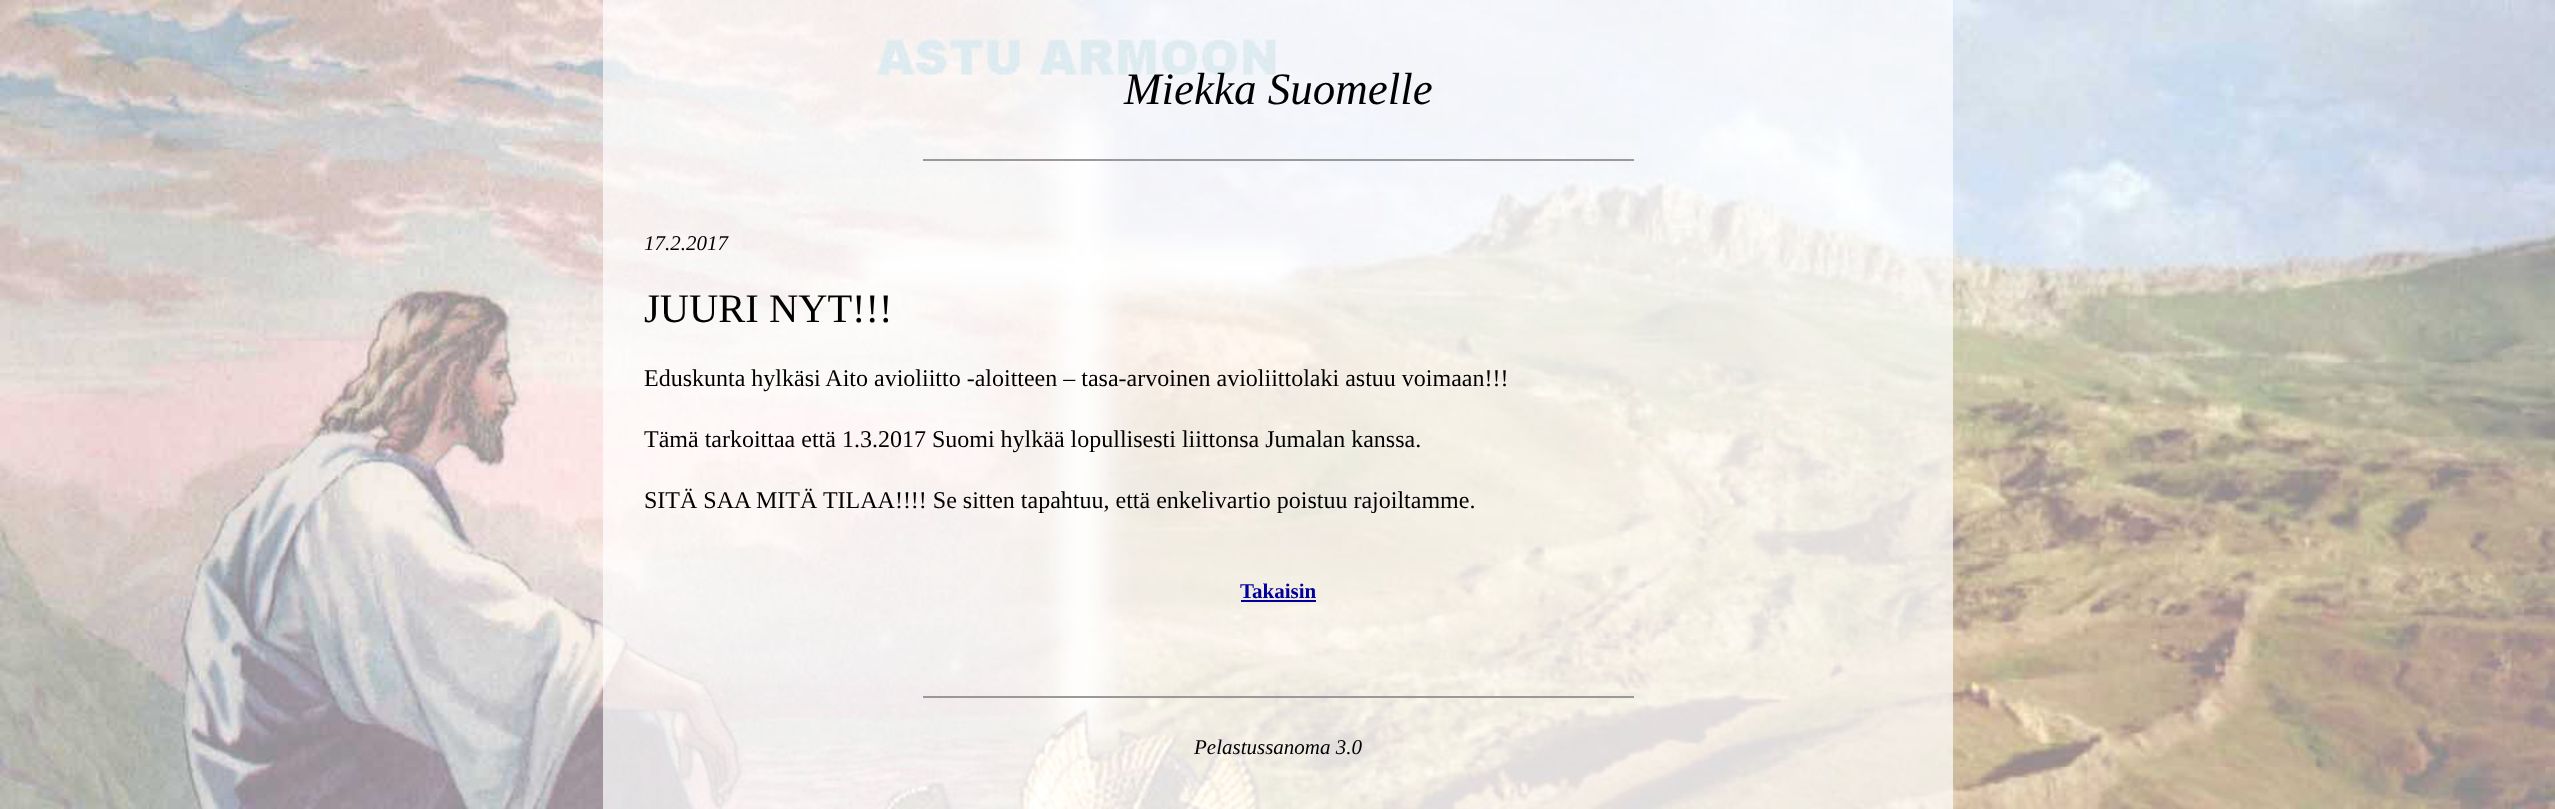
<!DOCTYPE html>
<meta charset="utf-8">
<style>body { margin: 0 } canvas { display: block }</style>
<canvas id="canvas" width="2555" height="809"></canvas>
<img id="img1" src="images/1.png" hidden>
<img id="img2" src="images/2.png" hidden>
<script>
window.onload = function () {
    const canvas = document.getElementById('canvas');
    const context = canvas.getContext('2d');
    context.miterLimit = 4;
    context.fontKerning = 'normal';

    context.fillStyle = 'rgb(255, 255, 255)';
    context.fillRect(0, 0, 2555, 809);
    context.drawImage(document.getElementById('img1'), 0, 693, 2555, 116);
    context.drawImage(document.getElementById('img2'), 0, 0, 2555, 693);
    context.fillStyle = 'rgba(255, 255, 255, 0.7)';
    context.fillRect(603, 0, 1350, 809);
    context.fillStyle = 'rgb(153, 153, 153)';
    context.fillRect(923, 159, 711, 2);
    context.fillStyle = 'rgb(0, 0, 153)';
    context.fillRect(1241, 600, 75, 2);
    context.fillStyle = 'rgb(153, 153, 153)';
    context.fillRect(923, 696, 711, 2);
    context.font = 'italic 45px Liberation Serif';
    context.fillStyle = 'rgb(0, 0, 0)';
    context.fillText('Miekka Suomelle', 1124, 104);
    context.font = 'italic 21px Liberation Serif';
    context.fillText('17.2.2017', 644, 250);
    context.font = '40.5px Liberation Serif';
    context.fillText('JUURI NYT!!!', 644, 322);
    context.font = '24px Liberation Serif';
    context.fillText('Eduskunta hylkäsi Aito avioliitto -aloitteen – tasa-arvoinen avioliittolaki astuu voimaan!!!', 644, 386);
    context.fillText('Tämä tarkoittaa että 1.3.2017 Suomi hylkää lopullisesti liittonsa Jumalan kanssa.', 644, 447);
    context.fillText('SITÄ SAA MITÄ TILAA!!!! Se sitten tapahtuu, että enkelivartio poistuu rajoiltamme.', 644, 508);
    context.font = 'bold 21px Liberation Serif';
    context.fillStyle = 'rgb(0, 0, 153)';
    context.fillText('Takaisin', 1240, 598);
    context.font = 'italic 21px Liberation Serif';
    context.fillStyle = 'rgb(0, 0, 0)';
    context.fillText('Pelastussanoma 3.0', 1194, 754);
};
</script>
